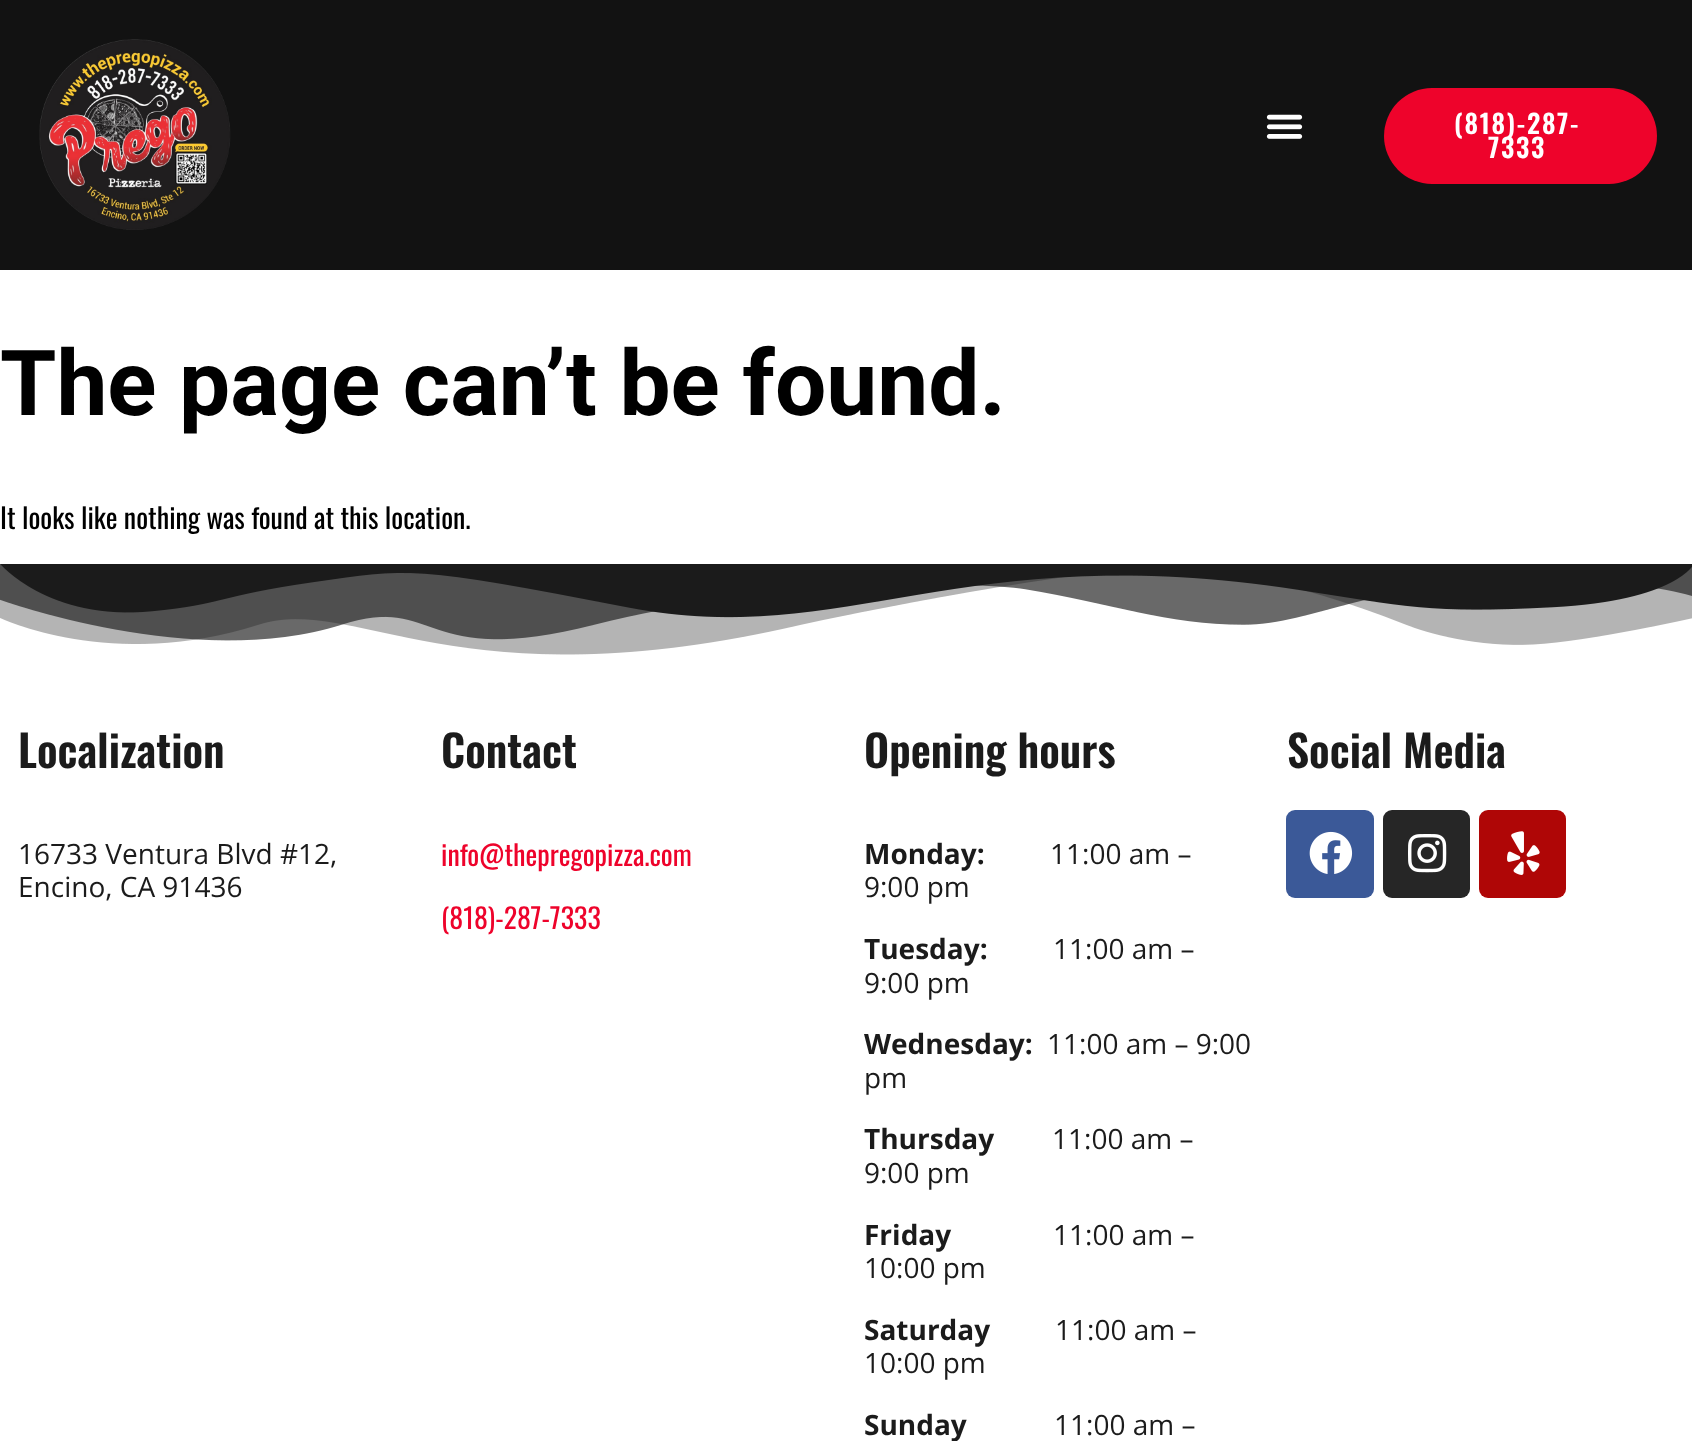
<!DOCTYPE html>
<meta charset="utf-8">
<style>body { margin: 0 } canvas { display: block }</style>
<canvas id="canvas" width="1692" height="1441"></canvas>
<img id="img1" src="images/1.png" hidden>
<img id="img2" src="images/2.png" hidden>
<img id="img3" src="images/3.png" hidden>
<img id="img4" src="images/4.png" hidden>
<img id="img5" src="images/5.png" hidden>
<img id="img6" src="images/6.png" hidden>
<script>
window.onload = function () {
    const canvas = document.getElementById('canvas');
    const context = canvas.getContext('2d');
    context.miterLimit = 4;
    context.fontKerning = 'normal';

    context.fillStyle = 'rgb(255, 255, 255)';
    context.fillRect(0, 0, 1692, 1441);
    context.fillStyle = 'rgb(18, 18, 18)';
    context.fillRect(0, 0, 1692, 270);
    context.drawImage(document.getElementById('img1'), 39, 39, 192, 191);
    context.drawImage(document.getElementById('img2'), 1266, 114, 37, 25);
    context.fillStyle = 'rgb(238, 3, 43)';
    context.beginPath();
    context.roundRect(1384, 88, 273, 96, 48);
    context.fill();
    context.drawImage(document.getElementById('img3'), 0, 564, 1692, 91);
    context.fillStyle = 'rgb(59, 89, 152)';
    context.beginPath();
    context.roundRect(1286, 810, 88, 88, 9);
    context.fill();
    context.drawImage(document.getElementById('img4'), 1309, 831, 44, 43);
    context.fillStyle = 'rgb(38, 38, 38)';
    context.beginPath();
    context.roundRect(1383, 810, 87, 88, 9);
    context.fill();
    context.drawImage(document.getElementById('img5'), 1408, 834, 39, 39);
    context.fillStyle = 'rgb(175, 6, 6)';
    context.beginPath();
    context.roundRect(1479, 810, 87, 88, 9);
    context.fill();
    context.drawImage(document.getElementById('img6'), 1507, 831, 33, 44);
    context.letterSpacing = '1.75px';
    context.font = '600 26.25px Oswald';
    context.fillStyle = 'rgb(255, 255, 255)';
    context.fillText('(818)-287-', 1454, 134);
    context.fillText('7333', 1488, 158);
    context.letterSpacing = '0px';
    context.font = 'bold 91px Roboto';
    context.fillStyle = 'rgb(0, 0, 0)';
    context.fillText('The page can’t be found.', 0, 415);
    context.font = '28px Oswald';
    context.fillText('It looks like nothing was found at this location.', 0, 529);
    context.font = '600 43.75px Oswald';
    context.fillStyle = 'rgb(27, 27, 27)';
    context.fillText('Localization', 18, 768);
    context.font = '28px Open Sans';
    context.fillText('16733 Ventura Blvd #12,', 18, 864);
    context.fillText('Encino, CA 91436', 18, 897);
    context.font = '600 43.75px Oswald';
    context.fillText('Contact', 441, 768);
    context.font = '28px Oswald';
    context.fillStyle = 'rgb(238, 3, 43)';
    context.fillText('info@thepregopizza.com', 441, 866);
    context.fillText('(818)-287-7333', 441, 929);
    context.font = '600 43.75px Oswald';
    context.fillStyle = 'rgb(27, 27, 27)';
    context.fillText('Opening hours', 864, 768);
    context.font = 'bold 28px Open Sans';
    context.fillText('Monday:', 864, 864);
    context.font = '28px Open Sans';
    context.fillText('11:00 am –', 1050, 864);
    context.fillText('9:00 pm', 864, 897);
    context.font = 'bold 28px Open Sans';
    context.fillText('Tuesday:', 864, 959);
    context.font = '28px Open Sans';
    context.fillText('11:00 am –', 1053, 959);
    context.fillText('9:00 pm', 864, 993);
    context.font = 'bold 28px Open Sans';
    context.fillText('Wednesday:', 864, 1054);
    context.font = '28px Open Sans';
    context.fillText('11:00 am – 9:00', 1047, 1054);
    context.fillText('pm', 864, 1088);
    context.font = 'bold 28px Open Sans';
    context.fillText('Thursday', 864, 1149);
    context.font = '28px Open Sans';
    context.fillText('11:00 am –', 1052, 1149);
    context.fillText('9:00 pm', 864, 1183);
    context.font = 'bold 28px Open Sans';
    context.fillText('Friday', 864, 1245);
    context.font = '28px Open Sans';
    context.fillText('11:00 am –', 1053, 1245);
    context.fillText('10:00 pm', 864, 1278);
    context.font = 'bold 28px Open Sans';
    context.fillText('Saturday', 864, 1340);
    context.font = '28px Open Sans';
    context.fillText('11:00 am –', 1055, 1340);
    context.fillText('10:00 pm', 864, 1373);
    context.font = 'bold 28px Open Sans';
    context.fillText('Sunday', 864, 1435);
    context.font = '28px Open Sans';
    context.fillText('11:00 am –', 1054, 1435);
    context.font = '600 43.75px Oswald';
    context.fillText('Social Media', 1287, 768);
};
</script>
